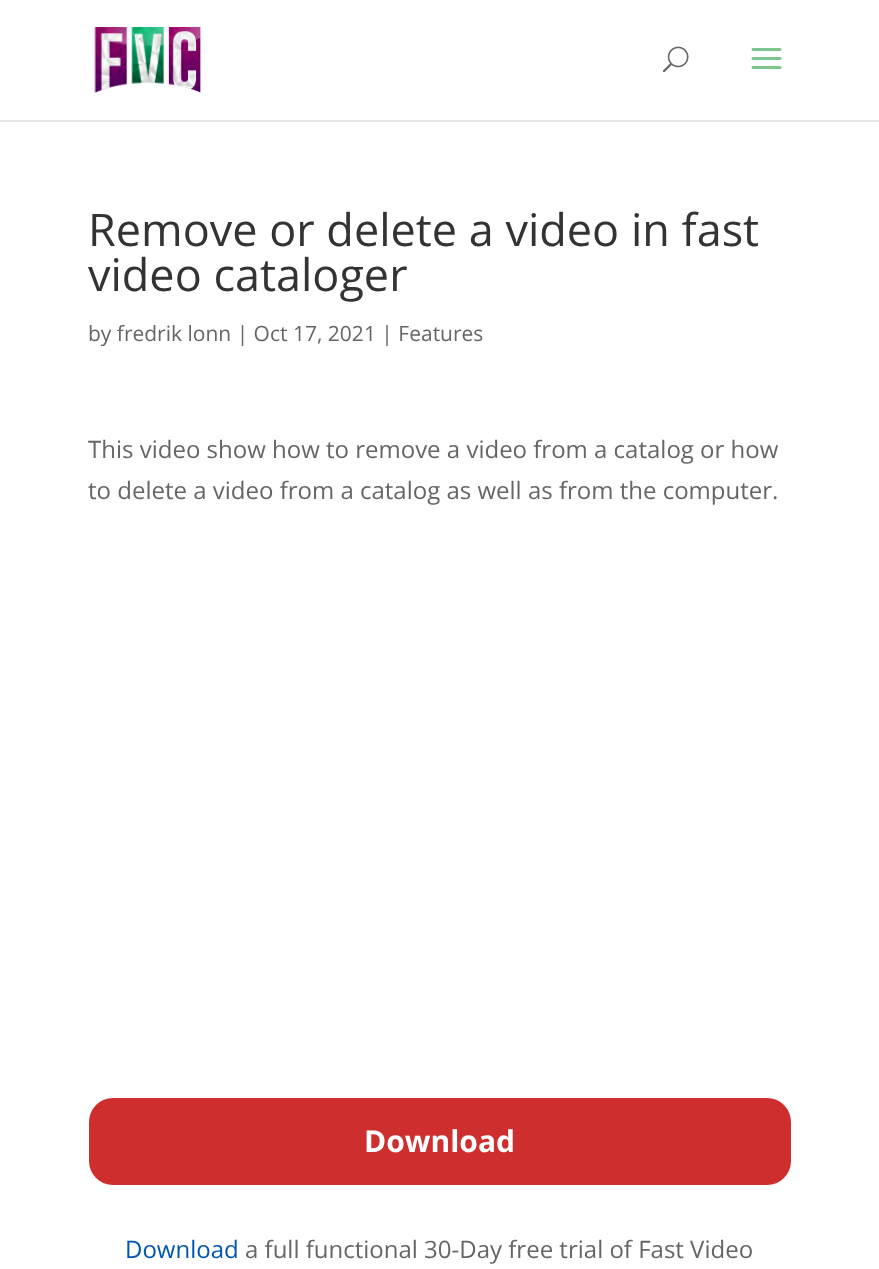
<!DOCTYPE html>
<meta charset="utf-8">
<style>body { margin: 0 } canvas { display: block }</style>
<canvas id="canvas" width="879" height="1269"></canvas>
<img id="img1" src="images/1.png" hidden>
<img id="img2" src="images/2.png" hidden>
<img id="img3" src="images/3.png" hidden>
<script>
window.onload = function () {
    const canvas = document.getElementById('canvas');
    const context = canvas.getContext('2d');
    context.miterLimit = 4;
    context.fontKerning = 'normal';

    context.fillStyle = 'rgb(255, 255, 255)';
    context.fillRect(0, 0, 879, 1269);
    context.fillStyle = 'rgb(230, 230, 230)';
    context.fillRect(0, 120, 879, 2);
    context.drawImage(document.getElementById('img1'), 94, 27, 107, 66);
    context.drawImage(document.getElementById('img2'), 662, 46, 27, 27);
    context.drawImage(document.getElementById('img3'), 751, 48, 31, 21);
    context.fillStyle = 'rgb(207, 46, 46)';
    context.beginPath();
    context.roundRect(89, 1098, 702, 87, 24);
    context.fill();
    context.font = '45px Open Sans';
    context.fillStyle = 'rgb(51, 51, 51)';
    context.fillText('Remove or delete a video in fast', 88, 246);
    context.fillText('video cataloger', 88, 291);
    context.font = '21px Open Sans';
    context.fillStyle = 'rgb(102, 102, 102)';
    context.fillText('by fredrik lonn | Oct 17, 2021 | Features', 88, 341);
    context.font = '24px Open Sans';
    context.fillText('This video show how to remove a video from a catalog or how', 88, 458);
    context.fillText('to delete a video from a catalog as well as from the computer.', 88, 499);
    context.font = 'bold 30px Open Sans';
    context.fillStyle = 'rgb(255, 255, 255)';
    context.fillText('Download', 364, 1152);
    context.font = '24px Open Sans';
    context.fillStyle = 'rgb(0, 86, 179)';
    context.fillText('Download', 125, 1258);
    context.fillStyle = 'rgb(102, 102, 102)';
    context.fillText('a full functional 30-Day free trial of Fast Video', 245, 1258);
};
</script>
